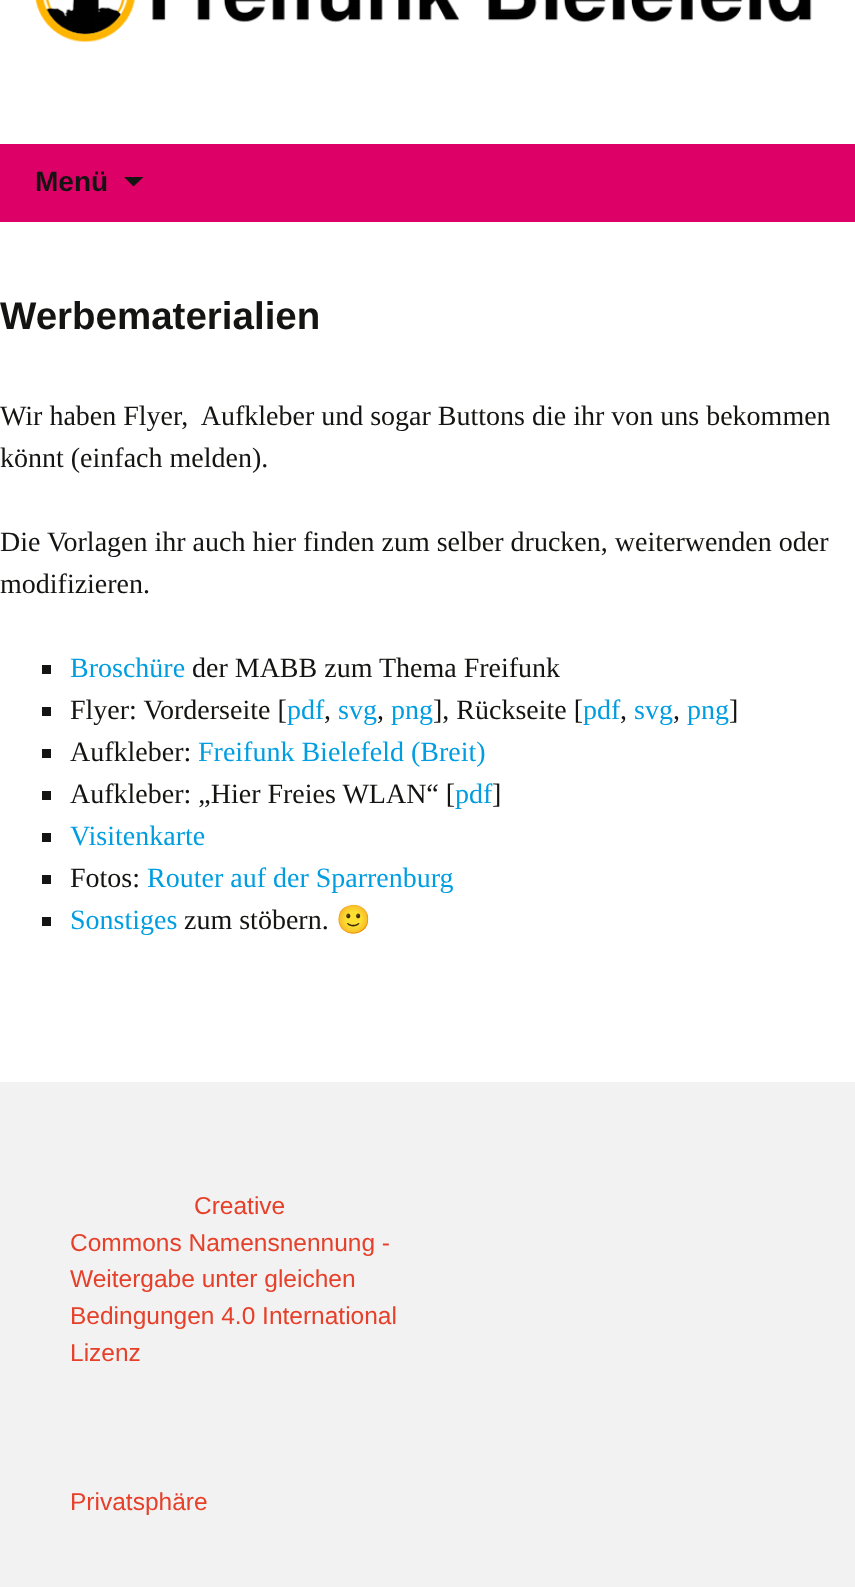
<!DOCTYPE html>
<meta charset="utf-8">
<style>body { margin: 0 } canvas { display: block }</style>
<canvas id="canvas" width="855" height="1587"></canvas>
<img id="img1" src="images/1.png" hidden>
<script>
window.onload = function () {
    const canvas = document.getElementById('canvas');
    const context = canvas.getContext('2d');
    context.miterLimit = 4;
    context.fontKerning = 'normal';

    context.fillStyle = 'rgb(255, 255, 255)';
    context.fillRect(0, 0, 855, 1587);
    context.drawImage(document.getElementById('img1'), 35, 0, 777, 42);
    context.fillStyle = 'rgb(220, 0, 103)';
    context.fillRect(0, 144, 855, 78);
    context.fillStyle = 'rgb(20, 20, 18)';
    context.beginPath();
    context.moveTo(124, 177);
    context.lineTo(133.5, 186.5);
    context.lineTo(143.5, 177);
    context.closePath();
    context.fill();
    context.fillRect(42, 665, 9, 9);
    context.fillRect(42, 707, 9, 9);
    context.fillRect(42, 749, 9, 9);
    context.fillRect(42, 791, 9, 9);
    context.fillRect(42, 833, 9, 9);
    context.fillRect(42, 875, 9, 9);
    context.fillRect(42, 917, 9, 9);
    context.fillStyle = 'rgb(242, 242, 242)';
    context.fillRect(0, 1082, 855, 505);
    context.font = 'bold 28px Liberation Sans';
    context.fillStyle = 'rgb(20, 20, 18)';
    context.fillText('Menü', 35, 191);
    context.font = 'bold 38.5px Liberation Sans';
    context.fillText('Werbematerialien', 0, 329);
    context.font = '28px Liberation Serif';
    context.fillText('Wir haben Flyer,  Aufkleber und sogar Buttons die ihr von uns bekommen', 0, 425);
    context.fillText('könnt (einfach melden).', 0, 467);
    context.fillText('Die Vorlagen ihr auch hier finden zum selber drucken, weiterwenden oder', 0, 551);
    context.fillText('modifizieren.', 0, 593);
    context.fillStyle = 'rgb(0, 158, 224)';
    context.fillText('Broschüre', 70, 677);
    context.fillStyle = 'rgb(20, 20, 18)';
    context.fillText('der MABB zum Thema Freifunk', 192, 677);
    context.fillText('Flyer: Vorderseite [', 70, 719);
    context.fillStyle = 'rgb(0, 158, 224)';
    context.fillText('pdf', 287, 719);
    context.fillText('svg', 338, 719);
    context.fillText('png', 391, 719);
    context.fillStyle = 'rgb(20, 20, 18)';
    context.fillText('], Rückseite [', 433, 719);
    context.fillStyle = 'rgb(0, 158, 224)';
    context.fillText('pdf', 583, 719);
    context.fillText('svg', 634, 719);
    context.fillText('png', 687, 719);
    context.fillStyle = 'rgb(20, 20, 18)';
    context.fillText(']', 729, 719);
    context.fillText(',', 324, 719);
    context.fillText(',', 377, 719);
    context.fillText(',', 620, 719);
    context.fillText(',', 673, 719);
    context.fillText('Aufkleber:', 70, 761);
    context.fillStyle = 'rgb(0, 158, 224)';
    context.fillText('Freifunk Bielefeld (Breit)', 198, 761);
    context.fillStyle = 'rgb(20, 20, 18)';
    context.fillText('Aufkleber: „Hier Freies WLAN“ [', 70, 803);
    context.fillStyle = 'rgb(0, 158, 224)';
    context.fillText('pdf', 455, 803);
    context.fillStyle = 'rgb(20, 20, 18)';
    context.fillText(']', 492, 803);
    context.fillStyle = 'rgb(0, 158, 224)';
    context.fillText('Visitenkarte', 70, 845);
    context.fillStyle = 'rgb(20, 20, 18)';
    context.fillText('Fotos:', 70, 887);
    context.fillStyle = 'rgb(0, 158, 224)';
    context.fillText('Router auf der Sparrenburg', 147, 887);
    context.fillText('Sonstiges', 70, 929);
    context.fillStyle = 'rgb(20, 20, 18)';
    context.fillText('zum stöbern.', 184, 929);
    context.font = '28px Noto Color Emoji';
    context.fillText('🙂', 336, 929);
    context.font = '24.5px Liberation Sans';
    context.fillStyle = 'rgb(230, 64, 42)';
    context.fillText('Creative', 194, 1214);
    context.fillText('Commons Namensnennung -', 70, 1251);
    context.fillText('Weitergabe unter gleichen', 70, 1287);
    context.fillText('Bedingungen 4.0 International', 70, 1324);
    context.fillText('Lizenz', 70, 1361);
    context.fillText('Privatsphäre', 70, 1510);
};
</script>
